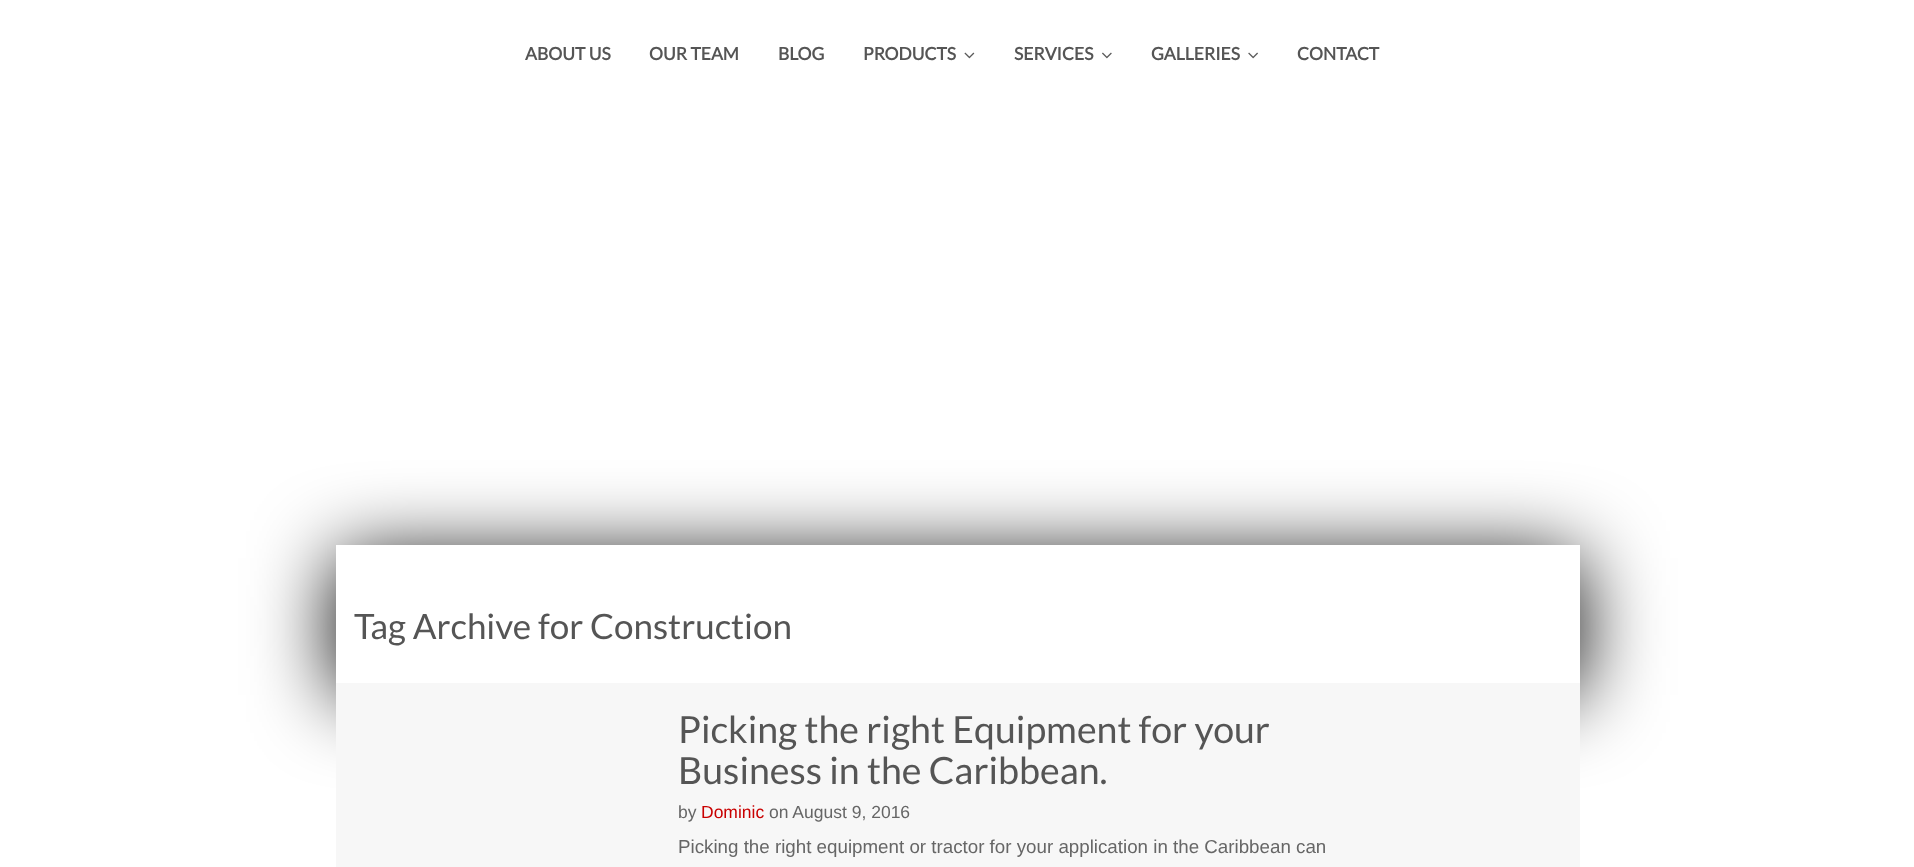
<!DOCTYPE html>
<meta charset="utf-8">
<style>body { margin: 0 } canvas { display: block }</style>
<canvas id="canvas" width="1914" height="867"></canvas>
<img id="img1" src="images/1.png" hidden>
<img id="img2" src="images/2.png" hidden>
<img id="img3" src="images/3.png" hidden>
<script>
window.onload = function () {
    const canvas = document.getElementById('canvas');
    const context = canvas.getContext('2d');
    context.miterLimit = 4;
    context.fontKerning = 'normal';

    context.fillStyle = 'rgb(255, 255, 255)';
    context.fillRect(0, 0, 1914, 867);
    context.drawImage(document.getElementById('img1'), 964, 52, 11, 7);
    context.drawImage(document.getElementById('img2'), 1102, 52, 10, 7);
    context.drawImage(document.getElementById('img3'), 1248, 52, 10, 7);
    context.save();
    context.beginPath();
    context.moveTo(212, 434);
    context.lineTo(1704, 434);
    context.lineTo(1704, 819);
    context.lineTo(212, 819);
    context.closePath();
    context.moveTo(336, 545);
    context.lineTo(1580, 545);
    context.lineTo(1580, 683);
    context.lineTo(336, 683);
    context.closePath();
    context.clip('evenodd');
    context.fillStyle = 'rgb(0, 0, 0)';
    context.filter = 'blur(41px)';
    context.beginPath();
    context.rect(336, 558, 1244, 137);
    context.fill();
    context.filter = 'none';
    context.restore();
    context.fillStyle = 'rgb(247, 247, 247)';
    context.fillRect(336, 683, 1244, 184);
    context.font = 'bold 17.5px Lato';
    context.fillStyle = 'rgb(85, 85, 85)';
    context.fillText('ABOUT US', 525, 60);
    context.fillText('OUR TEAM', 649, 60);
    context.fillText('BLOG', 778, 60);
    context.fillText('PRODUCTS', 863, 60);
    context.fillText('SERVICES', 1014, 60);
    context.fillText('GALLERIES', 1151, 60);
    context.fillText('CONTACT', 1297, 60);
    context.font = '35px Lato';
    context.fillText('Tag Archive for Construction', 354, 639);
    context.font = '37.5px Lato';
    context.fillText('Picking the right Equipment for your', 678, 743);
    context.fillText('Business in the Caribbean.', 678, 784);
    context.font = '17.5px Liberation Sans';
    context.fillStyle = 'rgb(102, 102, 102)';
    context.fillText('by', 678, 818);
    context.fillStyle = 'rgb(201, 0, 0)';
    context.fillText('Dominic', 701, 818);
    context.fillStyle = 'rgb(102, 102, 102)';
    context.fillText('on August 9, 2016', 769, 818);
    context.font = '18.75px Liberation Sans';
    context.fillText('Picking the right equipment or tractor for your application in the Caribbean can', 678, 853);
};
</script>
